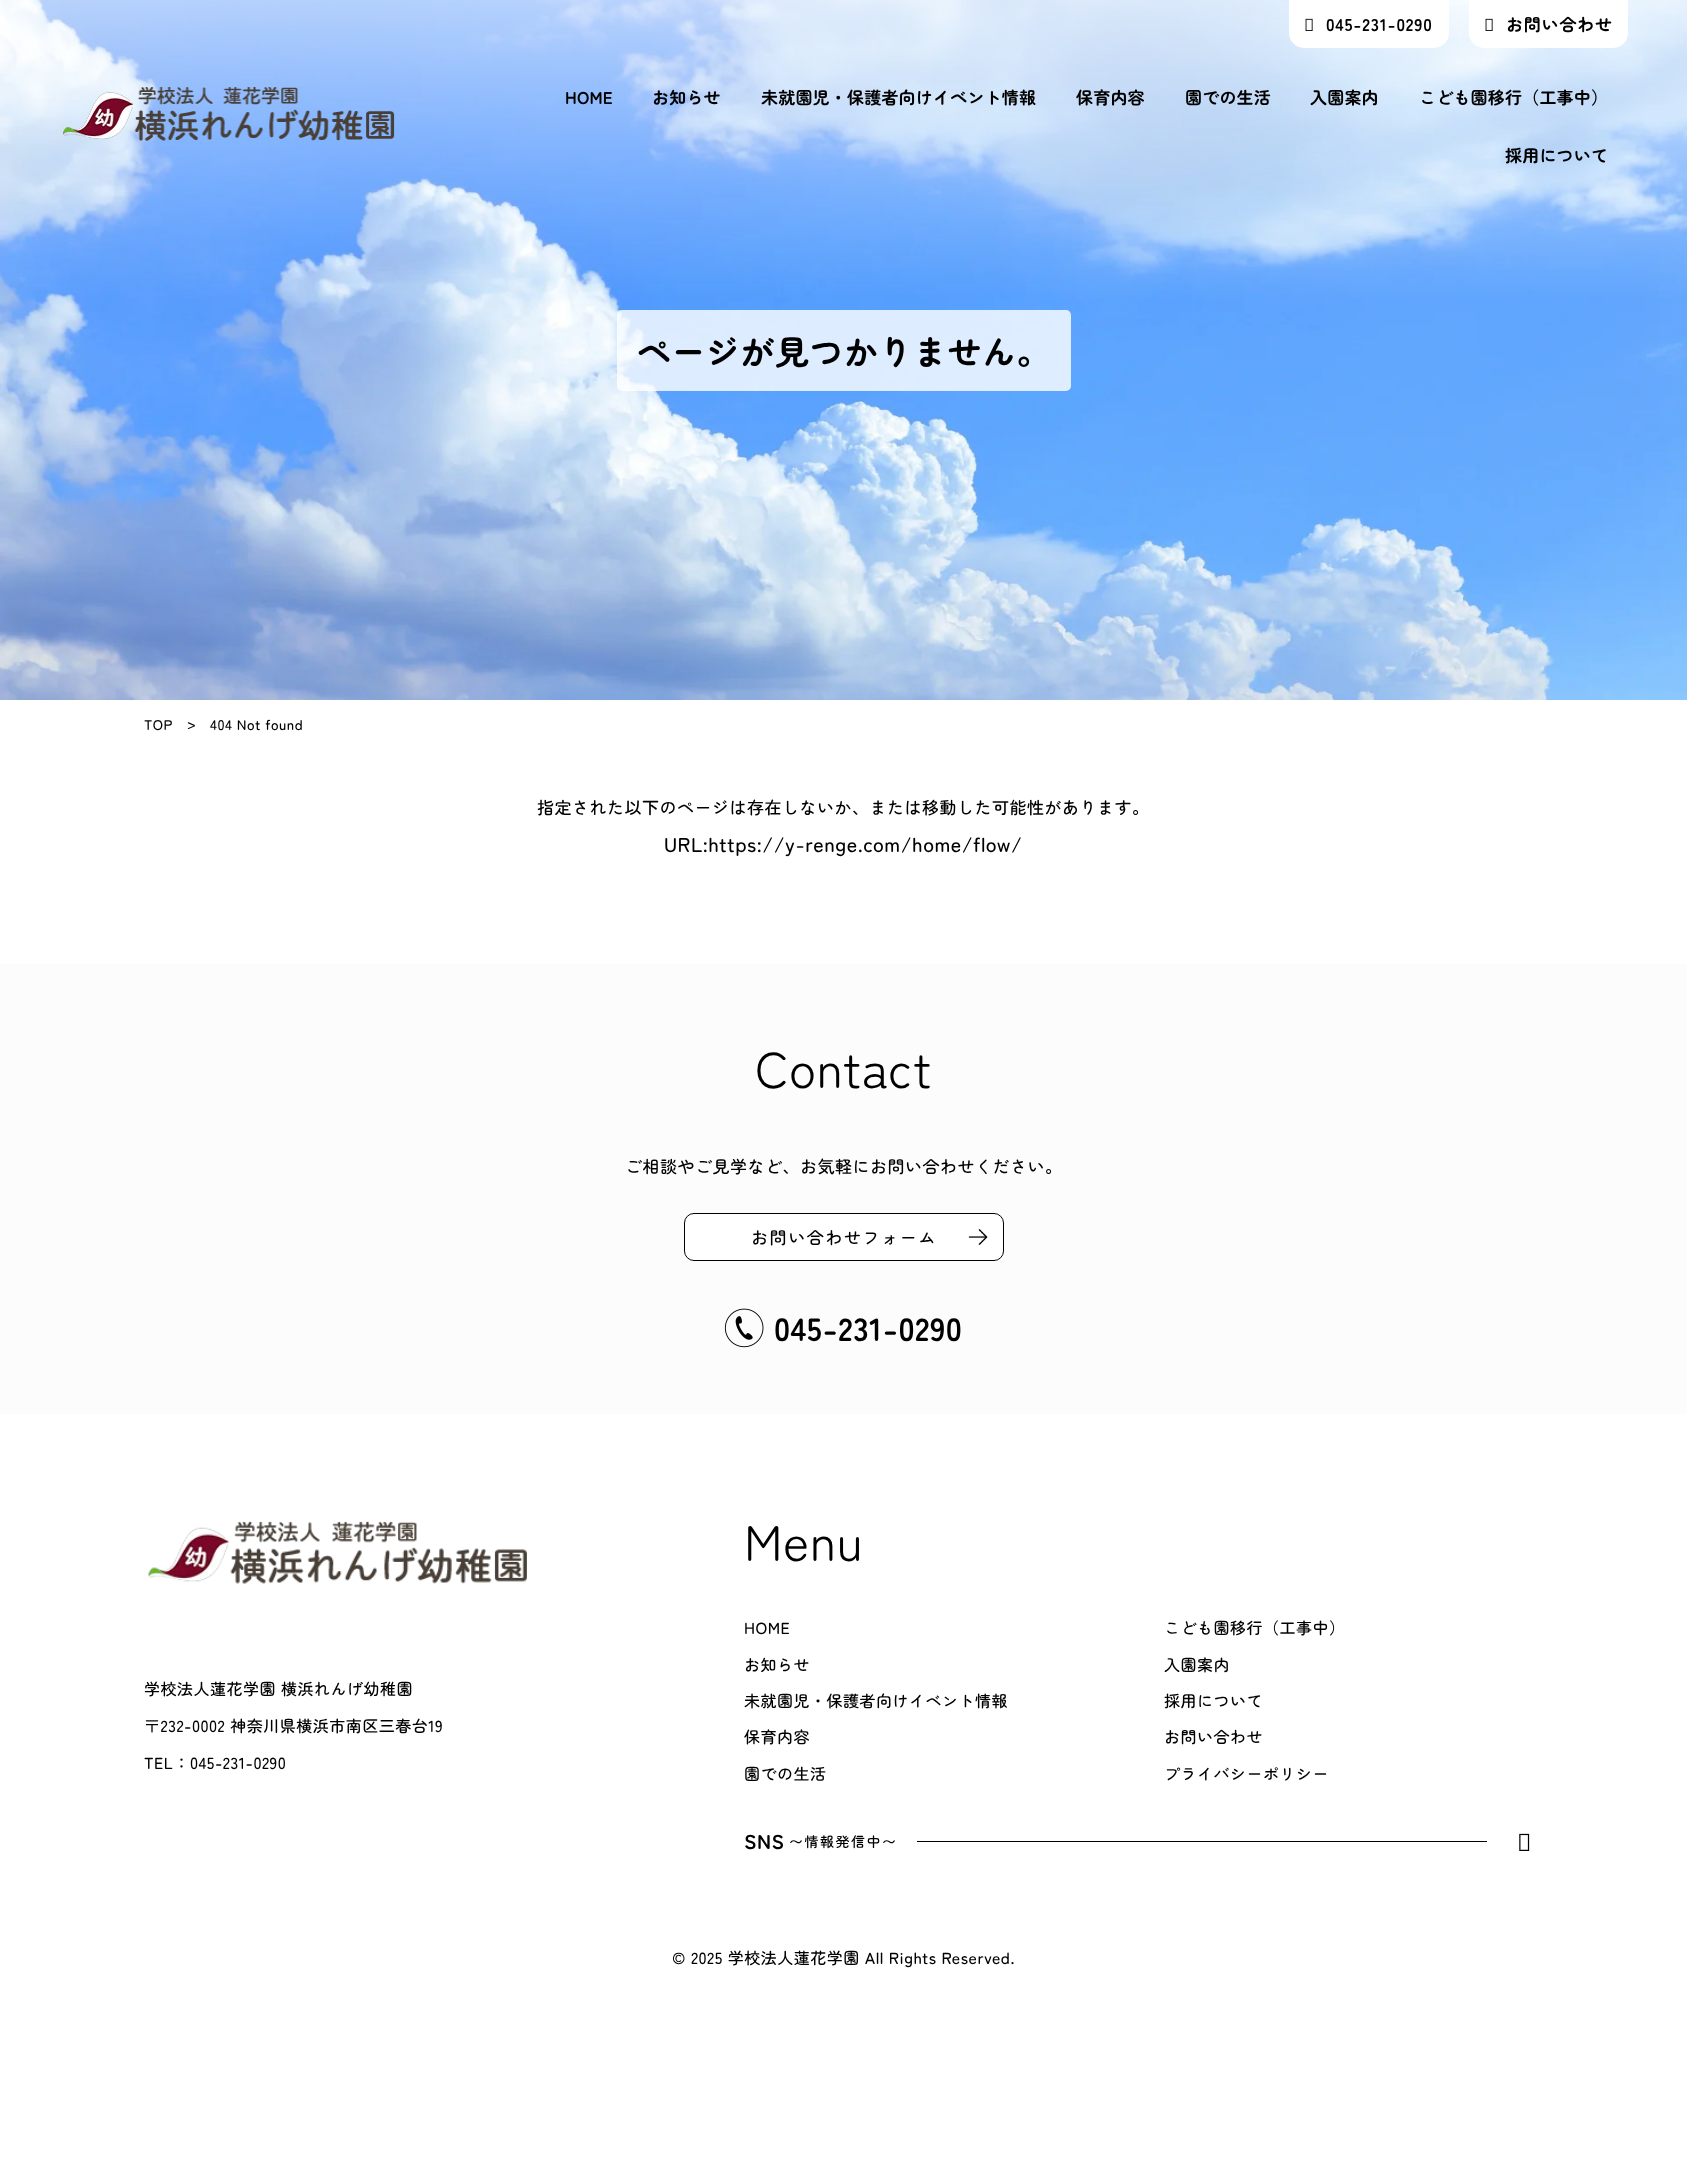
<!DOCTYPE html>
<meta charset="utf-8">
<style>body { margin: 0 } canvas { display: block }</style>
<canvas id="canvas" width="1687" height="2183"></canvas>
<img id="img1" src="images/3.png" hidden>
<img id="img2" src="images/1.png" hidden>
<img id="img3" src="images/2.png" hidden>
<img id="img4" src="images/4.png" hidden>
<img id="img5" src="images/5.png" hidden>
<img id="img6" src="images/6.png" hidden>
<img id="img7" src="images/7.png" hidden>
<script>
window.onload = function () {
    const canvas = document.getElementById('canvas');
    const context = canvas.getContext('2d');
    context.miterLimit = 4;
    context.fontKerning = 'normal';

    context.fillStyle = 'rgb(255, 255, 255)';
    context.fillRect(0, 0, 1687, 2183);
    context.drawImage(document.getElementById('img1'), 0, 0, 1687, 700);
    context.drawImage(document.getElementById('img2'), 63, 87, 332, 54);
    context.beginPath();
    context.roundRect(1289, 0, 160, 48, [0, 0, 15, 15]);
    context.fill();
    context.drawImage(document.getElementById('img3'), 1305, 18, 8, 13);
    context.beginPath();
    context.roundRect(1469, 0, 159, 48, [0, 0, 15, 15]);
    context.fill();
    context.drawImage(document.getElementById('img3'), 1485, 18, 8, 13);
    context.fillStyle = 'rgba(255, 255, 255, 0.8)';
    context.beginPath();
    context.roundRect(617, 310, 454, 81, 5);
    context.fill();
    context.fillStyle = 'rgb(252, 252, 252)';
    context.fillRect(0, 964, 1687, 450);
    context.fillStyle = 'rgb(255, 255, 255)';
    context.beginPath();
    context.roundRect(684, 1213, 320, 48, 10);
    context.fill();
    context.drawImage(document.getElementById('img4'), 968, 1229, 20, 16);
    context.beginPath();
    context.roundRect(684.5, 1213.5, 319, 47, 9.5);
    context.strokeStyle = 'rgb(0, 0, 0)';
    context.stroke();
    context.drawImage(document.getElementById('img5'), 724, 1308, 40, 40);
    context.drawImage(document.getElementById('img6'), 148, 1521, 379, 63);
    context.fillStyle = 'rgb(0, 0, 0)';
    context.fillRect(917, 1841, 570, 1);
    context.drawImage(document.getElementById('img7'), 1519, 1833, 11, 18);
    context.letterSpacing = '0.8px';
    context.font = 'bold 17px Zen Maru Gothic';
    context.fillText('045-231-0290', 1326, 31);
    context.fillText('お問い合わせ', 1506, 31);
    context.letterSpacing = '0.2px';
    context.fillText('HOME', 565, 104);
    context.fillText('お知らせ', 652, 104);
    context.fillText('未就園児・保護者向けイベント情報', 761, 104);
    context.fillText('保育内容', 1076, 104);
    context.fillText('園での生活', 1185, 104);
    context.fillText('入園案内', 1310, 104);
    context.fillText('こども園移行（工事中）', 1419, 104);
    context.fillText('採用について', 1505, 162);
    context.letterSpacing = '0.5px';
    context.font = 'bold 34px Zen Maru Gothic';
    context.fillText('ページが見つかりません。', 637, 365);
    context.font = '500 14px Zen Maru Gothic';
    context.fillText('TOP', 144, 730);
    context.fillText('>', 187, 729);
    context.fillText('404 Not found', 210, 730);
    context.font = '500 17px Zen Maru Gothic';
    context.fillText('指定された以下のページは存在しないか、または移動した可能性があります。', 537, 814);
    context.font = '500 20px Zen Maru Gothic';
    context.fillText('URL:https://y-renge.com/home/flow/', 664, 852);
    context.font = '50px Zen Maru Gothic';
    context.fillText('Contact', 755, 1088);
    context.font = '500 17px Zen Maru Gothic';
    context.fillText('ご相談やご見学など、お気軽にお問い合わせください。', 625, 1173);
    context.letterSpacing = '1.6px';
    context.fillText('お問い合わせフォーム', 751, 1244);
    context.letterSpacing = '0.5px';
    context.font = 'bold 32px Zen Maru Gothic';
    context.fillText('045-231-0290', 774, 1341);
    context.font = '500 16px Zen Maru Gothic';
    context.fillText('学校法人蓮花学園 横浜れんげ幼稚園', 144, 1695);
    context.fillText('〒232-0002 神奈川県横浜市南区三春台19', 144, 1732);
    context.fillText('TEL：045-231-0290', 144, 1769);
    context.font = '50px Zen Maru Gothic';
    context.fillText('Menu', 744, 1561);
    context.font = '500 16px Zen Maru Gothic';
    context.fillText('HOME', 744, 1634);
    context.fillText('お知らせ', 744, 1671);
    context.fillText('未就園児・保護者向けイベント情報', 744, 1707);
    context.fillText('保育内容', 744, 1743);
    context.fillText('園での生活', 744, 1780);
    context.fillText('こども園移行（工事中）', 1164, 1634);
    context.fillText('入園案内', 1164, 1671);
    context.fillText('採用について', 1164, 1707);
    context.fillText('お問い合わせ', 1164, 1743);
    context.fillText('プライバシーポリシー', 1164, 1780);
    context.font = 'bold 20px Zen Maru Gothic';
    context.fillText('SNS', 744, 1849);
    context.letterSpacing = '1.5px';
    context.font = '500 14px Zen Maru Gothic';
    context.fillText('〜情報発信中〜', 789, 1847);
    context.letterSpacing = '0.5px';
    context.font = '500 16px Zen Maru Gothic';
    context.fillText('© 2025 学校法人蓮花学園 All Rights Reserved.', 672, 1964);
};
</script>
